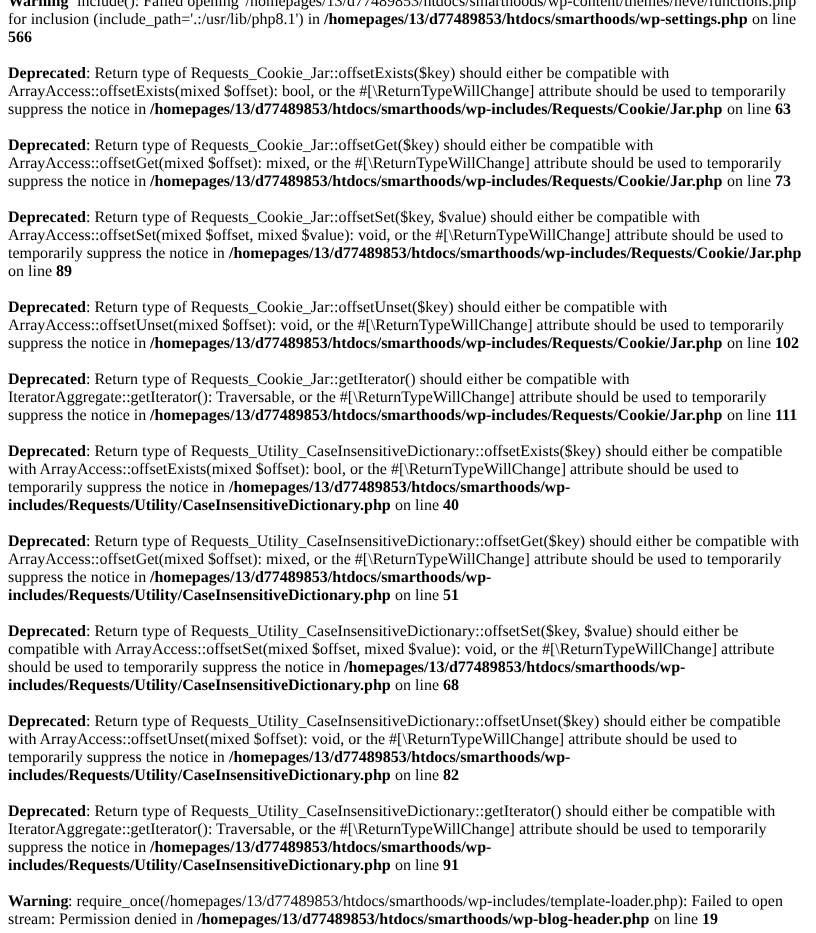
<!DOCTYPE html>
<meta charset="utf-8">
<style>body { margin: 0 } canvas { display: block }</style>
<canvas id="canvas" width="816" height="933"></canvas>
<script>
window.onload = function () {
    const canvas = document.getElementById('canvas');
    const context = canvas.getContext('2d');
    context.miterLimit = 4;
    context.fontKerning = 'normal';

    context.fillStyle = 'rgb(255, 255, 255)';
    context.fillRect(0, 0, 816, 933);
    context.font = 'bold 16px Liberation Serif';
    context.fillStyle = 'rgb(0, 0, 0)';
    context.fillText('Warning', 8, 6);
    context.font = '16px Liberation Serif';
    context.fillText('include(): Failed opening \'/homepages/13/d77489853/htdocs/smarthoods/wp-content/themes/neve/functions.php', 77, 6);
    context.fillText('for inclusion (include_path=\'.:/usr/lib/php8.1\') in', 8, 24);
    context.font = 'bold 16px Liberation Serif';
    context.fillText('/homepages/13/d77489853/htdocs/smarthoods/wp-settings.php', 324, 24);
    context.font = '16px Liberation Serif';
    context.fillText('on line', 752, 24);
    context.font = 'bold 16px Liberation Serif';
    context.fillText('566', 8, 42);
    context.fillText('Deprecated', 8, 78);
    context.font = '16px Liberation Serif';
    context.fillText(': Return type of Requests_Cookie_Jar::offsetExists($key) should either be compatible with', 86, 78);
    context.fillText('ArrayAccess::offsetExists(mixed $offset): bool, or the #[\\ReturnTypeWillChange] attribute should be used to temporarily', 8, 96);
    context.fillText('suppress the notice in', 8, 114);
    context.font = 'bold 16px Liberation Serif';
    context.fillText('/homepages/13/d77489853/htdocs/smarthoods/wp-includes/Requests/Cookie/Jar.php', 150, 114);
    context.font = '16px Liberation Serif';
    context.fillText('on line', 727, 114);
    context.font = 'bold 16px Liberation Serif';
    context.fillText('63', 775, 114);
    context.fillText('Deprecated', 8, 150);
    context.font = '16px Liberation Serif';
    context.fillText(': Return type of Requests_Cookie_Jar::offsetGet($key) should either be compatible with', 86, 150);
    context.fillText('ArrayAccess::offsetGet(mixed $offset): mixed, or the #[\\ReturnTypeWillChange] attribute should be used to temporarily', 8, 168);
    context.fillText('suppress the notice in', 8, 186);
    context.font = 'bold 16px Liberation Serif';
    context.fillText('/homepages/13/d77489853/htdocs/smarthoods/wp-includes/Requests/Cookie/Jar.php', 150, 186);
    context.font = '16px Liberation Serif';
    context.fillText('on line', 727, 186);
    context.font = 'bold 16px Liberation Serif';
    context.fillText('73', 775, 186);
    context.fillText('Deprecated', 8, 222);
    context.font = '16px Liberation Serif';
    context.fillText(': Return type of Requests_Cookie_Jar::offsetSet($key, $value) should either be compatible with', 86, 222);
    context.fillText('ArrayAccess::offsetSet(mixed $offset, mixed $value): void, or the #[\\ReturnTypeWillChange] attribute should be used to', 8, 240);
    context.fillText('temporarily suppress the notice in', 8, 258);
    context.font = 'bold 16px Liberation Serif';
    context.fillText('/homepages/13/d77489853/htdocs/smarthoods/wp-includes/Requests/Cookie/Jar.php', 229, 258);
    context.font = '16px Liberation Serif';
    context.fillText('on line', 8, 276);
    context.font = 'bold 16px Liberation Serif';
    context.fillText('89', 56, 276);
    context.fillText('Deprecated', 8, 312);
    context.font = '16px Liberation Serif';
    context.fillText(': Return type of Requests_Cookie_Jar::offsetUnset($key) should either be compatible with', 86, 312);
    context.fillText('ArrayAccess::offsetUnset(mixed $offset): void, or the #[\\ReturnTypeWillChange] attribute should be used to temporarily', 8, 330);
    context.fillText('suppress the notice in', 8, 348);
    context.font = 'bold 16px Liberation Serif';
    context.fillText('/homepages/13/d77489853/htdocs/smarthoods/wp-includes/Requests/Cookie/Jar.php', 150, 348);
    context.font = '16px Liberation Serif';
    context.fillText('on line', 727, 348);
    context.font = 'bold 16px Liberation Serif';
    context.fillText('102', 775, 348);
    context.fillText('Deprecated', 8, 384);
    context.font = '16px Liberation Serif';
    context.fillText(': Return type of Requests_Cookie_Jar::getIterator() should either be compatible with', 86, 384);
    context.fillText('IteratorAggregate::getIterator(): Traversable, or the #[\\ReturnTypeWillChange] attribute should be used to temporarily', 8, 402);
    context.fillText('suppress the notice in', 8, 420);
    context.font = 'bold 16px Liberation Serif';
    context.fillText('/homepages/13/d77489853/htdocs/smarthoods/wp-includes/Requests/Cookie/Jar.php', 150, 420);
    context.font = '16px Liberation Serif';
    context.fillText('on line', 727, 420);
    context.font = 'bold 16px Liberation Serif';
    context.fillText('111', 775, 420);
    context.fillText('Deprecated', 8, 456);
    context.font = '16px Liberation Serif';
    context.fillText(': Return type of Requests_Utility_CaseInsensitiveDictionary::offsetExists($key) should either be compatible', 86, 456);
    context.fillText('with ArrayAccess::offsetExists(mixed $offset): bool, or the #[\\ReturnTypeWillChange] attribute should be used to', 8, 474);
    context.fillText('temporarily suppress the notice in', 8, 492);
    context.font = 'bold 16px Liberation Serif';
    context.fillText('/homepages/13/d77489853/htdocs/smarthoods/wp-', 229, 492);
    context.fillText('includes/Requests/Utility/CaseInsensitiveDictionary.php', 8, 510);
    context.font = '16px Liberation Serif';
    context.fillText('on line', 395, 510);
    context.font = 'bold 16px Liberation Serif';
    context.fillText('40', 443, 510);
    context.fillText('Deprecated', 8, 546);
    context.font = '16px Liberation Serif';
    context.fillText(': Return type of Requests_Utility_CaseInsensitiveDictionary::offsetGet($key) should either be compatible with', 86, 546);
    context.fillText('ArrayAccess::offsetGet(mixed $offset): mixed, or the #[\\ReturnTypeWillChange] attribute should be used to temporarily', 8, 564);
    context.fillText('suppress the notice in', 8, 582);
    context.font = 'bold 16px Liberation Serif';
    context.fillText('/homepages/13/d77489853/htdocs/smarthoods/wp-', 150, 582);
    context.fillText('includes/Requests/Utility/CaseInsensitiveDictionary.php', 8, 600);
    context.font = '16px Liberation Serif';
    context.fillText('on line', 395, 600);
    context.font = 'bold 16px Liberation Serif';
    context.fillText('51', 443, 600);
    context.fillText('Deprecated', 8, 636);
    context.font = '16px Liberation Serif';
    context.fillText(': Return type of Requests_Utility_CaseInsensitiveDictionary::offsetSet($key, $value) should either be', 86, 636);
    context.fillText('compatible with ArrayAccess::offsetSet(mixed $offset, mixed $value): void, or the #[\\ReturnTypeWillChange] attribute', 8, 654);
    context.fillText('should be used to temporarily suppress the notice in', 8, 672);
    context.font = 'bold 16px Liberation Serif';
    context.fillText('/homepages/13/d77489853/htdocs/smarthoods/wp-', 344, 672);
    context.fillText('includes/Requests/Utility/CaseInsensitiveDictionary.php', 8, 690);
    context.font = '16px Liberation Serif';
    context.fillText('on line', 395, 690);
    context.font = 'bold 16px Liberation Serif';
    context.fillText('68', 443, 690);
    context.fillText('Deprecated', 8, 726);
    context.font = '16px Liberation Serif';
    context.fillText(': Return type of Requests_Utility_CaseInsensitiveDictionary::offsetUnset($key) should either be compatible', 86, 726);
    context.fillText('with ArrayAccess::offsetUnset(mixed $offset): void, or the #[\\ReturnTypeWillChange] attribute should be used to', 8, 744);
    context.fillText('temporarily suppress the notice in', 8, 762);
    context.font = 'bold 16px Liberation Serif';
    context.fillText('/homepages/13/d77489853/htdocs/smarthoods/wp-', 229, 762);
    context.fillText('includes/Requests/Utility/CaseInsensitiveDictionary.php', 8, 780);
    context.font = '16px Liberation Serif';
    context.fillText('on line', 395, 780);
    context.font = 'bold 16px Liberation Serif';
    context.fillText('82', 443, 780);
    context.fillText('Deprecated', 8, 816);
    context.font = '16px Liberation Serif';
    context.fillText(': Return type of Requests_Utility_CaseInsensitiveDictionary::getIterator() should either be compatible with', 86, 816);
    context.fillText('IteratorAggregate::getIterator(): Traversable, or the #[\\ReturnTypeWillChange] attribute should be used to temporarily', 8, 834);
    context.fillText('suppress the notice in', 8, 852);
    context.font = 'bold 16px Liberation Serif';
    context.fillText('/homepages/13/d77489853/htdocs/smarthoods/wp-', 150, 852);
    context.fillText('includes/Requests/Utility/CaseInsensitiveDictionary.php', 8, 870);
    context.font = '16px Liberation Serif';
    context.fillText('on line', 395, 870);
    context.font = 'bold 16px Liberation Serif';
    context.fillText('91', 443, 870);
    context.fillText('Warning', 8, 906);
    context.font = '16px Liberation Serif';
    context.fillText(': require_once(/homepages/13/d77489853/htdocs/smarthoods/wp-includes/template-loader.php): Failed to open', 68, 906);
    context.fillText('stream: Permission denied in', 8, 924);
    context.font = 'bold 16px Liberation Serif';
    context.fillText('/homepages/13/d77489853/htdocs/smarthoods/wp-blog-header.php', 197, 924);
    context.font = '16px Liberation Serif';
    context.fillText('on line', 654, 924);
    context.font = 'bold 16px Liberation Serif';
    context.fillText('19', 702, 924);
};
</script>
